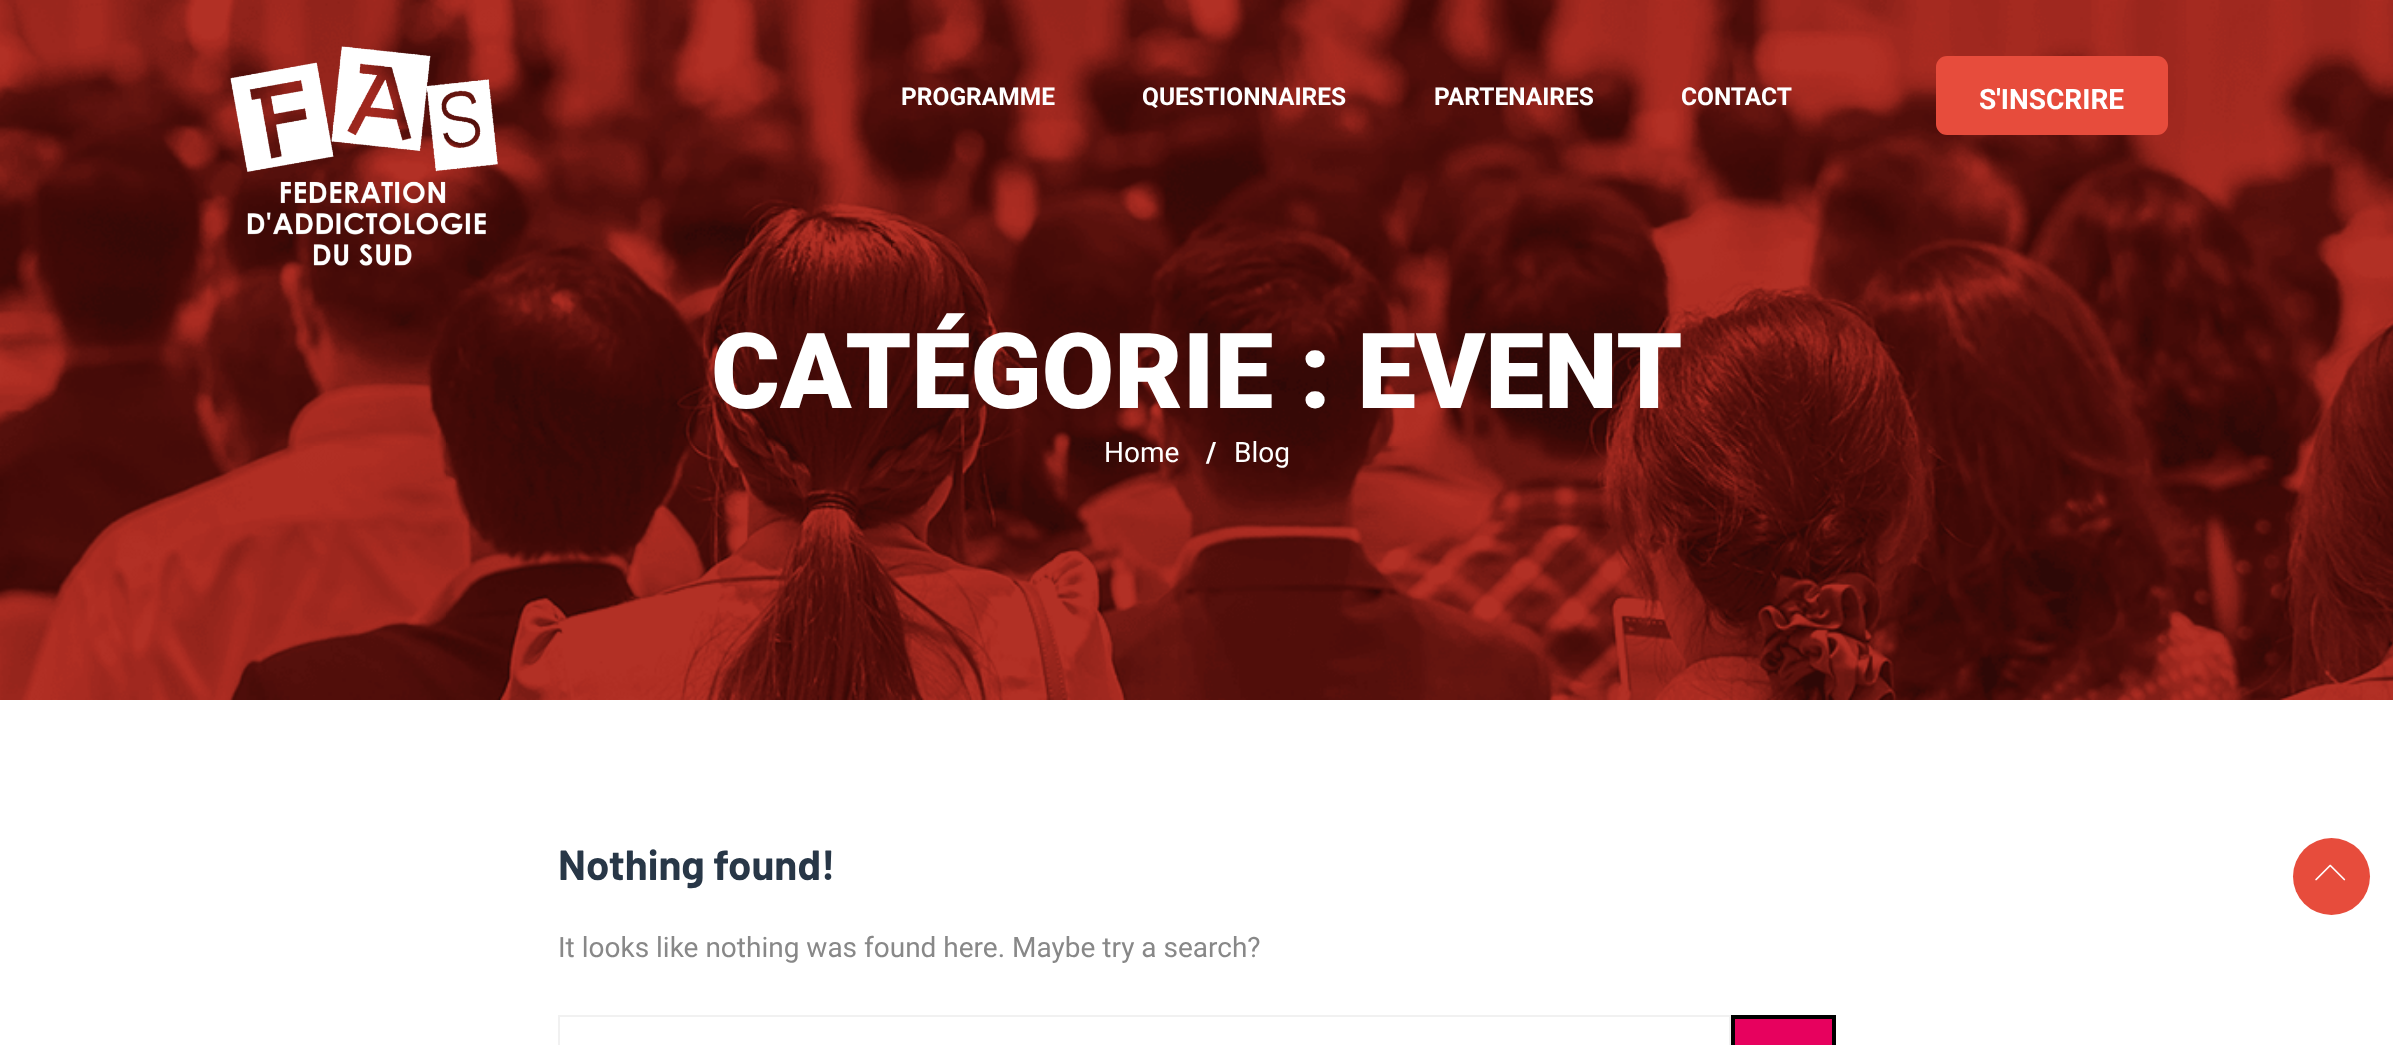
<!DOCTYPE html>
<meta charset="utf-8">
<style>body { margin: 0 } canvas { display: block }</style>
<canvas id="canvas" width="2393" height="1045"></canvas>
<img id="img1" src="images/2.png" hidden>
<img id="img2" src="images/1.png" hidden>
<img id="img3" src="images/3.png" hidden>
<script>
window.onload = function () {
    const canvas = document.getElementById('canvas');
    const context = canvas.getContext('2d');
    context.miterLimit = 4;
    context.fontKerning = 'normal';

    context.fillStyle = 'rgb(255, 255, 255)';
    context.fillRect(0, 0, 2393, 1045);
    context.drawImage(document.getElementById('img1'), 0, 0, 2393, 700);
    context.drawImage(document.getElementById('img2'), 230, 46, 268, 220);
    context.fillStyle = 'rgb(231, 76, 60)';
    context.beginPath();
    context.roundRect(1936, 56, 232, 79, 11);
    context.fill();
    context.strokeStyle = 'rgb(241, 241, 241)';
    context.lineWidth = 2;
    context.strokeRect(559, 1016, 1171, 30);
    context.fillStyle = 'rgb(231, 1, 94)';
    context.beginPath();
    context.rect(1733, 1017, 101, 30);
    context.fill();
    context.strokeStyle = 'rgb(0, 0, 0)';
    context.lineWidth = 4;
    context.stroke();
    context.fillStyle = 'rgb(231, 76, 60)';
    context.beginPath();
    context.arc(2331.5, 876.5, 38.5, 0, 2 * Math.PI);
    context.fill();
    context.drawImage(document.getElementById('img3'), 2315, 864, 31, 17);
    context.font = 'bold 24.5px Roboto';
    context.fillStyle = 'rgb(255, 255, 255)';
    context.fillText('PROGRAMME', 901, 105);
    context.fillText('QUESTIONNAIRES', 1142, 105);
    context.fillText('PARTENAIRES', 1434, 105);
    context.fillText('CONTACT', 1681, 105);
    context.font = 'bold 28px Roboto';
    context.fillText('S\'INSCRIRE', 1979, 109);
    context.font = '900 105px Roboto';
    context.fillText('CATÉGORIE : EVENT', 711, 408);
    context.font = '28px Roboto';
    context.fillText('Home', 1104, 462);
    context.font = 'bold 28px Roboto';
    context.fillText('/', 1206, 462);
    context.font = '28px Roboto';
    context.fillText('Blog', 1234, 462);
    context.font = 'bold 42px Barlow';
    context.fillStyle = 'rgb(40, 55, 71)';
    context.fillText('Nothing found!', 558, 880);
    context.font = '28px Roboto';
    context.fillStyle = 'rgb(136, 136, 136)';
    context.fillText('It looks like nothing was found here. Maybe try a search?', 558, 957);
};
</script>
